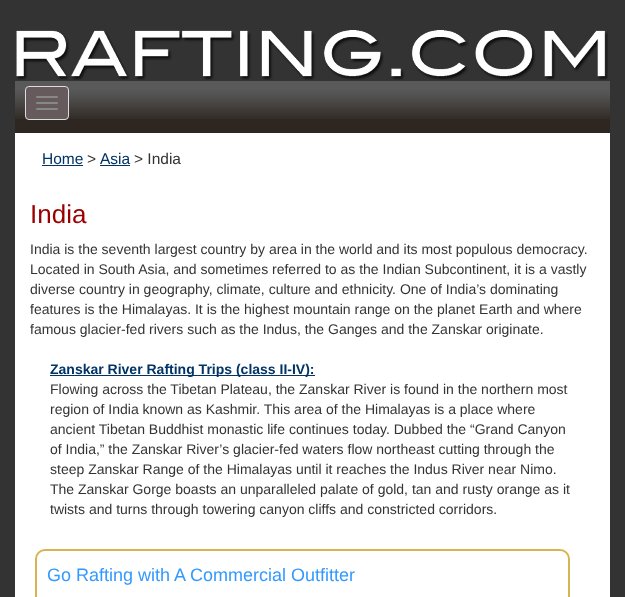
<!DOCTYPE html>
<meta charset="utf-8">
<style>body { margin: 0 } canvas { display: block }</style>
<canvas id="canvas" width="625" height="597"></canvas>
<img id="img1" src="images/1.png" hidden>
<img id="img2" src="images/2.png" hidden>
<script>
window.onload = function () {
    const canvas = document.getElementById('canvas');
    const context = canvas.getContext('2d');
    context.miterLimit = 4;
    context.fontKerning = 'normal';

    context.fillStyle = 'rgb(51, 51, 51)';
    context.fillRect(0, 0, 625, 597);
    context.drawImage(document.getElementById('img1'), 16, 30, 592, 50);
    context.fillStyle = 'rgb(46, 39, 33)';
    context.fillRect(15, 119, 595, 14);
    context.drawImage(document.getElementById('img2'), 15, 81, 595, 38);
    context.fillStyle = 'rgb(102, 90, 92)';
    context.beginPath();
    context.roundRect(25.5, 86.5, 43, 33, 3.5);
    context.fill();
    context.strokeStyle = 'rgb(221, 221, 221)';
    context.stroke();
    context.fillStyle = 'rgb(136, 136, 136)';
    context.beginPath();
    context.roundRect(36, 96, 22, 2, 1);
    context.fill();
    context.beginPath();
    context.roundRect(36, 102, 22, 2, 1);
    context.fill();
    context.beginPath();
    context.roundRect(36, 108, 22, 2, 1);
    context.fill();
    context.fillStyle = 'rgb(255, 255, 255)';
    context.fillRect(15, 133, 595, 464);
    context.fillStyle = 'rgb(0, 51, 102)';
    context.fillRect(42, 165, 41, 1);
    context.fillRect(100, 165, 30, 1);
    context.fillRect(50, 375, 265, 1);
    context.beginPath();
    context.roundRect(36, 550, 533, 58, 9);
    context.strokeStyle = 'rgb(215, 180, 81)';
    context.lineWidth = 2;
    context.stroke();
    context.font = '15.5px Liberation Sans';
    context.fillText('Home', 42, 164);
    context.fillStyle = 'rgb(51, 51, 51)';
    context.fillText('>', 87, 164);
    context.fillStyle = 'rgb(0, 51, 102)';
    context.fillText('Asia', 100, 164);
    context.fillStyle = 'rgb(51, 51, 51)';
    context.fillText('> India', 134, 164);
    context.font = '26px Liberation Sans';
    context.fillStyle = 'rgb(153, 0, 0)';
    context.fillText('India', 30, 223);
    context.font = '14px Liberation Sans';
    context.fillStyle = 'rgb(51, 51, 51)';
    context.fillText('India is the seventh largest country by area in the world and its most populous democracy.', 30, 254);
    context.fillText('Located in South Asia, and sometimes referred to as the Indian Subcontinent, it is a vastly', 30, 274);
    context.fillText('diverse country in geography, climate, culture and ethnicity. One of India’s dominating', 30, 294);
    context.fillText('features is the Himalayas. It is the highest mountain range on the planet Earth and where', 30, 314);
    context.fillText('famous glacier-fed rivers such as the Indus, the Ganges and the Zanskar originate.', 30, 334);
    context.font = 'bold 14px Liberation Sans';
    context.fillStyle = 'rgb(0, 51, 102)';
    context.fillText('Zanskar River Rafting Trips (class II-IV):', 50, 374);
    context.font = '14px Liberation Sans';
    context.fillStyle = 'rgb(51, 51, 51)';
    context.fillText('Flowing across the Tibetan Plateau, the Zanskar River is found in the northern most', 50, 394);
    context.fillText('region of India known as Kashmir. This area of the Himalayas is a place where', 50, 414);
    context.fillText('ancient Tibetan Buddhist monastic life continues today. Dubbed the “Grand Canyon', 50, 434);
    context.fillText('of India,” the Zanskar River’s glacier-fed waters flow northeast cutting through the', 50, 454);
    context.fillText('steep Zanskar Range of the Himalayas until it reaches the Indus River near Nimo.', 50, 474);
    context.fillText('The Zanskar Gorge boasts an unparalleled palate of gold, tan and rusty orange as it', 50, 494);
    context.fillText('twists and turns through towering canyon cliffs and constricted corridors.', 50, 514);
    context.font = '18px Liberation Sans';
    context.fillStyle = 'rgb(51, 153, 255)';
    context.fillText('Go Rafting with A Commercial Outfitter', 47, 581);
};
</script>
